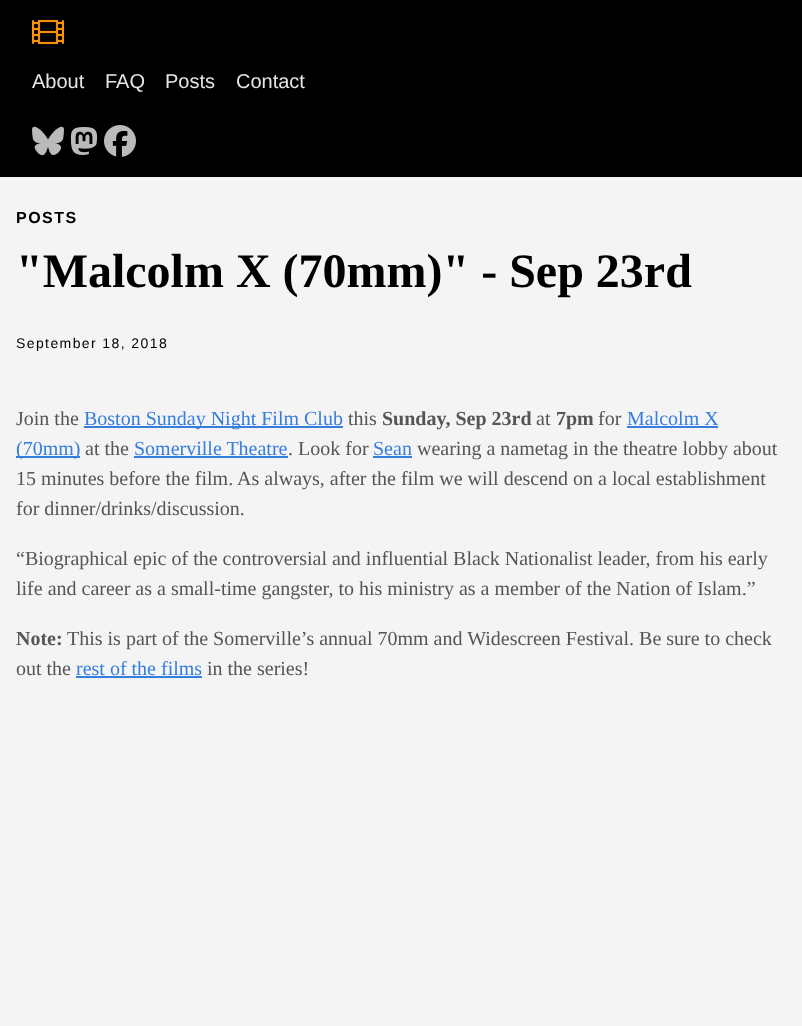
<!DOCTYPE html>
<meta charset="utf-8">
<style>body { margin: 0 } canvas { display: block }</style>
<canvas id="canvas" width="802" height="1026"></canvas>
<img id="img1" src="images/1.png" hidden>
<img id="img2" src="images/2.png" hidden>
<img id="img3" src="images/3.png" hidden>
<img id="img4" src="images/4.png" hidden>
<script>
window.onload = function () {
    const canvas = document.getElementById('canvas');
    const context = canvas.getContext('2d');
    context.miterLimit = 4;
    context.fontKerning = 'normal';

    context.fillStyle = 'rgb(244, 244, 244)';
    context.fillRect(0, 0, 802, 1026);
    context.fillStyle = 'rgb(0, 0, 0)';
    context.fillRect(0, 0, 802, 177);
    context.drawImage(document.getElementById('img1'), 32, 19, 32, 26);
    context.drawImage(document.getElementById('img2'), 32, 126, 32, 30);
    context.drawImage(document.getElementById('img3'), 70, 127, 28, 28);
    context.drawImage(document.getElementById('img4'), 104, 125, 32, 32);
    context.fillStyle = 'rgb(53, 126, 221)';
    context.fillRect(84, 426, 259, 2);
    context.fillRect(627, 426, 91, 2);
    context.fillRect(16, 456, 64, 2);
    context.fillRect(134, 456, 154, 2);
    context.fillRect(373, 456, 39, 2);
    context.fillRect(76, 676, 126, 2);
    context.font = '20px Liberation Sans';
    context.fillStyle = 'rgb(230, 230, 230)';
    context.fillText('About', 32, 88);
    context.fillText('FAQ', 105, 88);
    context.fillText('Posts', 165, 88);
    context.fillText('Contact', 236, 88);
    context.letterSpacing = '1.5px';
    context.font = 'bold 16px Liberation Sans';
    context.fillStyle = 'rgb(0, 0, 0)';
    context.fillText('POSTS', 16, 223);
    context.letterSpacing = '0px';
    context.font = 'bold 48px Liberation Serif';
    context.fillText('"Malcolm X (70mm)" - Sep 23rd', 16, 287);
    context.letterSpacing = '1.4px';
    context.font = '14px Liberation Sans';
    context.fillText('September 18, 2018', 16, 348);
    context.letterSpacing = '0px';
    context.font = '20px Liberation Serif';
    context.fillStyle = 'rgb(85, 85, 85)';
    context.fillText('Join the', 16, 425);
    context.fillStyle = 'rgb(53, 126, 221)';
    context.fillText('Boston Sunday Night Film Club', 84, 425);
    context.fillStyle = 'rgb(85, 85, 85)';
    context.fillText('this', 348, 425);
    context.font = 'bold 20px Liberation Serif';
    context.fillText('Sunday, Sep 23rd', 382, 425);
    context.font = '20px Liberation Serif';
    context.fillText('at', 536, 425);
    context.font = 'bold 20px Liberation Serif';
    context.fillText('7pm', 556, 425);
    context.font = '20px Liberation Serif';
    context.fillText('for', 598, 425);
    context.fillStyle = 'rgb(53, 126, 221)';
    context.fillText('Malcolm X', 627, 425);
    context.fillText('(70mm)', 16, 455);
    context.fillStyle = 'rgb(85, 85, 85)';
    context.fillText('at the', 85, 455);
    context.fillStyle = 'rgb(53, 126, 221)';
    context.fillText('Somerville Theatre', 134, 455);
    context.fillStyle = 'rgb(85, 85, 85)';
    context.fillText('. Look for', 288, 455);
    context.fillStyle = 'rgb(53, 126, 221)';
    context.fillText('Sean', 373, 455);
    context.fillStyle = 'rgb(85, 85, 85)';
    context.fillText('wearing a nametag in the theatre lobby about', 417, 455);
    context.fillText('15 minutes before the film. As always, after the film we will descend on a local establishment', 16, 485);
    context.fillText('for dinner/drinks/discussion.', 16, 515);
    context.fillText('“Biographical epic of the controversial and influential Black Nationalist leader, from his early', 16, 565);
    context.fillText('life and career as a small-time gangster, to his ministry as a member of the Nation of Islam.”', 16, 595);
    context.font = 'bold 20px Liberation Serif';
    context.fillText('Note:', 16, 645);
    context.font = '20px Liberation Serif';
    context.fillText('This is part of the Somerville’s annual 70mm and Widescreen Festival. Be sure to check', 67, 645);
    context.fillText('out the', 16, 675);
    context.fillStyle = 'rgb(53, 126, 221)';
    context.fillText('rest of the films', 76, 675);
    context.fillStyle = 'rgb(85, 85, 85)';
    context.fillText('in the series!', 207, 675);
};
</script>
